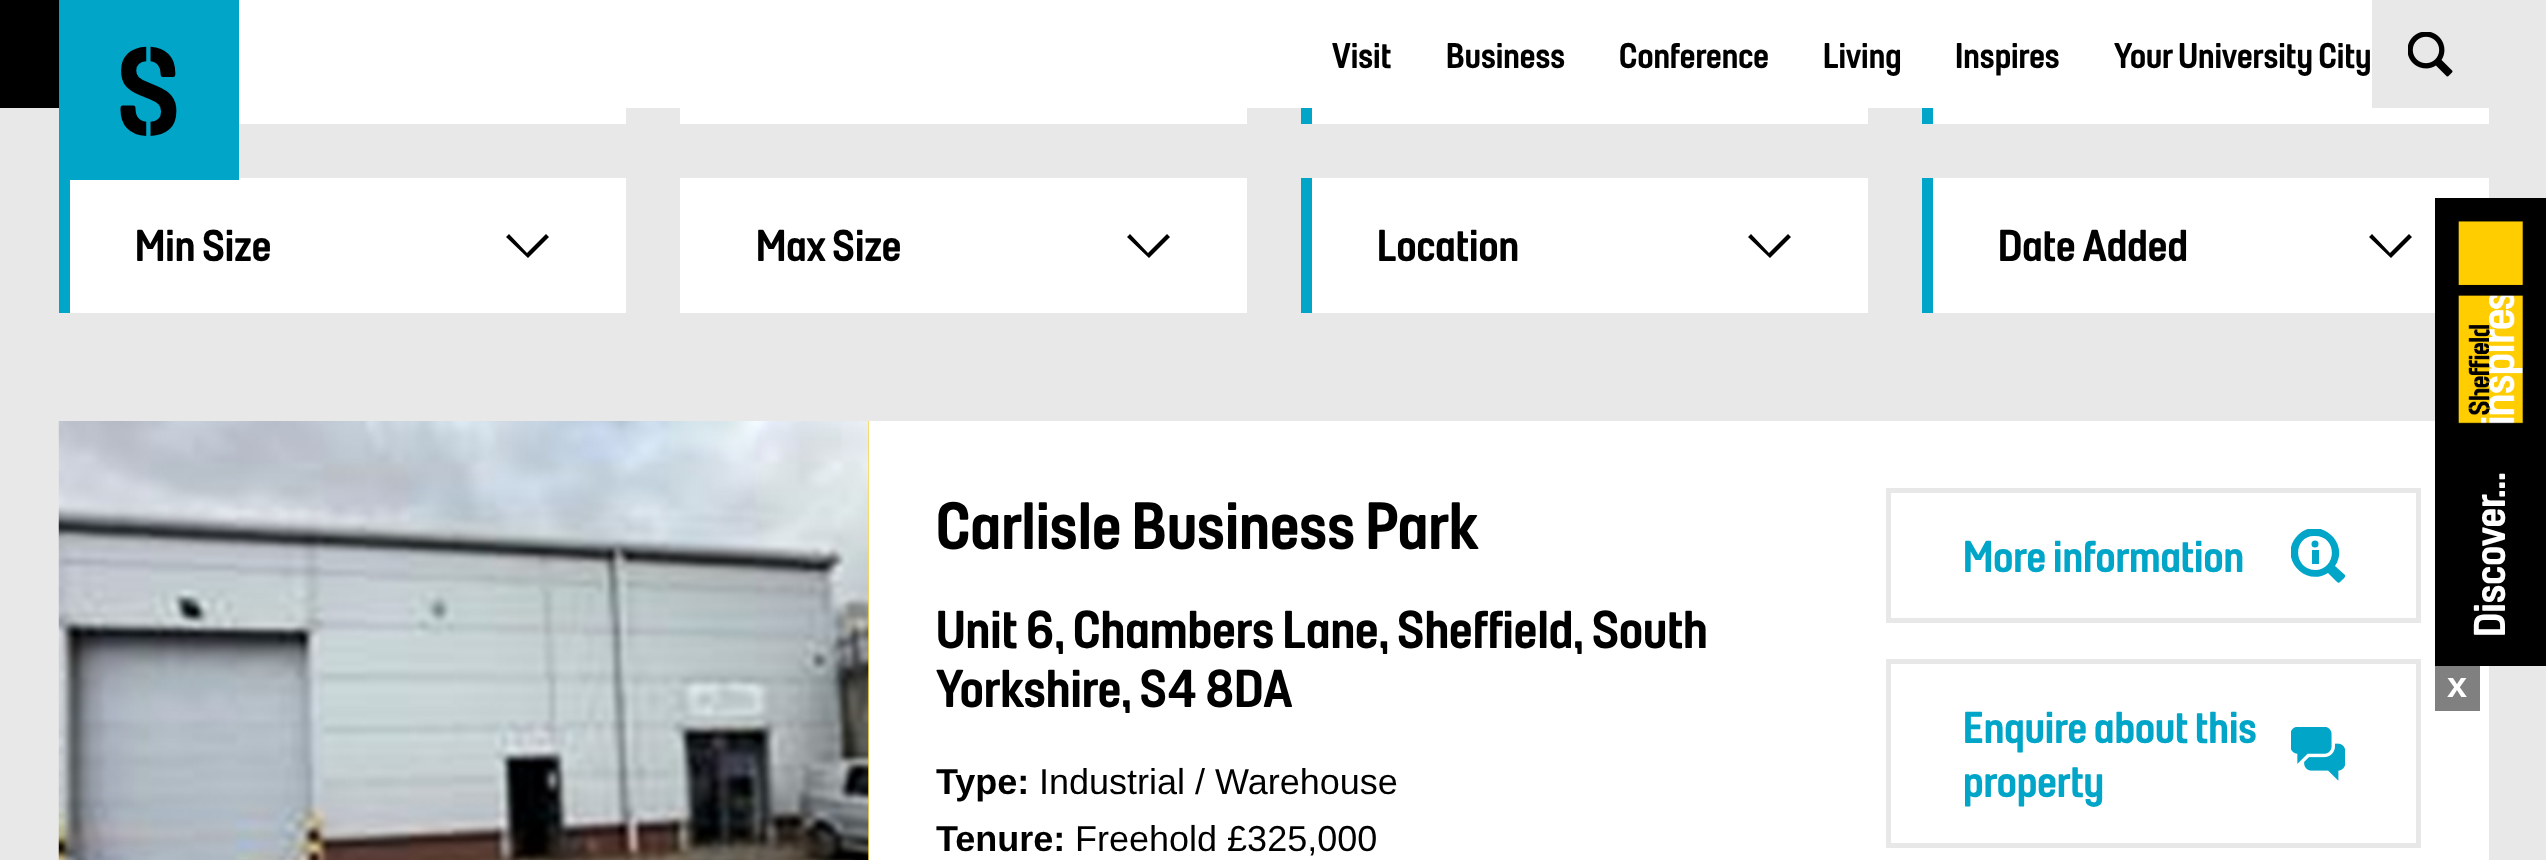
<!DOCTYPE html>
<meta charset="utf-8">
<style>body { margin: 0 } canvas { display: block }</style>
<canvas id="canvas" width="2546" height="860"></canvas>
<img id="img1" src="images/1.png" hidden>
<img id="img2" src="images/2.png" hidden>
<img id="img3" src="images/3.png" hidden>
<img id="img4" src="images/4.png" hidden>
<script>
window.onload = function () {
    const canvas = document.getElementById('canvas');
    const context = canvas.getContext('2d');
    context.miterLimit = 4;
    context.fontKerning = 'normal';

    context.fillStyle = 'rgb(232, 232, 232)';
    context.fillRect(0, 0, 2546, 860);
    context.fillStyle = 'rgb(0, 0, 0)';
    context.fillRect(0, 0, 59, 108);
    context.fillStyle = 'rgb(255, 255, 255)';
    context.fillRect(70, 178, 556, 135);
    context.fillStyle = 'rgb(0, 165, 200)';
    context.fillRect(59, 0, 180, 180);
    context.fillStyle = 'rgb(255, 255, 255)';
    context.fillRect(239, 0, 2133, 108);
    context.drawImage(document.getElementById('img1'), 2408, 32, 45, 45);
    context.fillRect(239, 108, 387, 16);
    context.fillRect(680, 108, 567, 16);
    context.fillStyle = 'rgb(0, 165, 200)';
    context.fillRect(1301, 108, 11, 16);
    context.fillStyle = 'rgb(255, 255, 255)';
    context.fillRect(1312, 108, 556, 16);
    context.fillStyle = 'rgb(0, 165, 200)';
    context.fillRect(1922, 108, 11, 16);
    context.fillStyle = 'rgb(255, 255, 255)';
    context.fillRect(1933, 108, 556, 16);
    context.fillStyle = 'rgb(0, 165, 200)';
    context.fillRect(59, 180, 11, 133);
    context.fillStyle = 'rgb(0, 0, 0)';
    context.beginPath();
    context.moveTo(506, 237);
    context.lineTo(509, 234);
    context.lineTo(527, 253);
    context.lineTo(546, 234);
    context.lineTo(549, 237);
    context.lineTo(528, 258);
    context.lineTo(506, 237);
    context.fill('evenodd');
    context.fillStyle = 'rgb(255, 255, 255)';
    context.fillRect(680, 178, 567, 135);
    context.fillStyle = 'rgb(0, 0, 0)';
    context.beginPath();
    context.moveTo(1127, 237);
    context.lineTo(1130, 234);
    context.lineTo(1148, 253);
    context.lineTo(1167, 234);
    context.lineTo(1170, 237);
    context.lineTo(1149, 258);
    context.lineTo(1127, 237);
    context.fill('evenodd');
    context.fillStyle = 'rgb(0, 165, 200)';
    context.fillRect(1301, 178, 11, 135);
    context.fillStyle = 'rgb(255, 255, 255)';
    context.fillRect(1312, 178, 556, 135);
    context.fillStyle = 'rgb(0, 0, 0)';
    context.beginPath();
    context.moveTo(1748, 237);
    context.lineTo(1751, 234);
    context.lineTo(1769, 253);
    context.lineTo(1788, 234);
    context.lineTo(1791, 237);
    context.lineTo(1770, 258);
    context.lineTo(1748, 237);
    context.fill('evenodd');
    context.fillStyle = 'rgb(0, 165, 200)';
    context.fillRect(1922, 178, 11, 135);
    context.fillStyle = 'rgb(255, 255, 255)';
    context.fillRect(1933, 178, 556, 135);
    context.fillStyle = 'rgb(0, 0, 0)';
    context.beginPath();
    context.moveTo(2369, 237);
    context.lineTo(2372, 234);
    context.lineTo(2390, 253);
    context.lineTo(2409, 234);
    context.lineTo(2412, 237);
    context.lineTo(2391, 258);
    context.lineTo(2369, 237);
    context.fill('evenodd');
    context.fillStyle = 'rgb(255, 215, 68)';
    context.fillRect(868, 421, 1, 439);
    context.drawImage(document.getElementById('img2'), 58, 421, 811, 439);
    context.fillStyle = 'rgb(255, 255, 255)';
    context.fillRect(869, 421, 1620, 439);
    context.strokeStyle = 'rgb(232, 232, 232)';
    context.lineWidth = 5;
    context.strokeRect(1888.5, 490.5, 530, 130);
    context.fillStyle = 'rgb(0, 165, 200)';
    context.fillRect(2312, 550, 7, 14);
    context.save();
    context.beginPath();
    context.rect(2291, 529, 54, 54);
    context.clip();
    context.beginPath();
    context.moveTo(2345, 575);
    context.lineTo(2335, 566);
    context.bezierCurveTo(2351, 542, 2318, 515, 2298, 535);
    context.bezierCurveTo(2277, 556, 2304, 588, 2328, 573);
    context.lineTo(2336, 581);
    context.bezierCurveTo(2339, 584, 2339, 583, 2342, 580);
    context.bezierCurveTo(2343, 579, 2346, 577, 2345, 575);
    context.closePath();
    context.moveTo(2315, 570);
    context.bezierCurveTo(2292, 569, 2293, 535, 2315, 536);
    context.bezierCurveTo(2338, 536, 2337, 570, 2315, 570);
    context.closePath();
    context.fill();
    context.restore();
    context.beginPath();
    context.arc(2315, 544, 3.5, 0, 2 * Math.PI);
    context.fill();
    context.strokeRect(1888.5, 661.5, 530, 184);
    context.drawImage(document.getElementById('img3'), 2291, 727, 54, 54);
    context.fillStyle = 'rgb(0, 0, 0)';
    context.fillRect(2435, 198, 111, 468);
    context.drawImage(document.getElementById('img4'), 2458, 221, 66, 203);
    context.fillStyle = 'rgb(128, 128, 128)';
    context.fillRect(2435, 666, 45, 45);
    context.font = '126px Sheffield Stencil';
    context.fillStyle = 'rgb(0, 0, 0)';
    context.fillText('S', 117, 135);
    context.font = '36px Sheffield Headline';
    context.fillText('Visit', 1332, 68);
    context.fillText('Business', 1446, 68);
    context.fillText('Conference', 1619, 68);
    context.fillText('Living', 1823, 68);
    context.fillText('Inspires', 1955, 68);
    context.fillText('Your University City', 2114, 68);
    context.font = '45px Sheffield Headline';
    context.fillText('Min Size', 135, 261);
    context.fillText('Max Size', 756, 261);
    context.fillText('Location', 1377, 261);
    context.fillText('Date Added', 1998, 261);
    context.font = '67.5px Sheffield Headline';
    context.fillText('Carlisle Business Park', 936, 549);
    context.font = '54px Sheffield Headline';
    context.fillText('Unit 6, Chambers Lane, Sheffield, South', 936, 648);
    context.fillText('Yorkshire, S4 8DA', 936, 707);
    context.font = 'bold 36px Liberation Sans';
    context.fillText('Type:', 936, 794);
    context.font = '36px Liberation Sans';
    context.fillText('Industrial / Warehouse', 1039, 794);
    context.font = 'bold 36px Liberation Sans';
    context.fillText('Tenure:', 936, 851);
    context.font = '36px Liberation Sans';
    context.fillText('Freehold £325,000', 1075, 851);
    context.font = '45px Sheffield Headline';
    context.fillStyle = 'rgb(0, 165, 200)';
    context.fillText('More information', 1963, 572);
    context.fillText('Enquire about this', 1963, 743);
    context.fillText('property', 1963, 797);
    context.fillStyle = 'rgb(255, 255, 255)';
    context.save();
    context.translate(2505, 637);
    context.rotate(-90 * Math.PI / 180);
    context.fillText('Discover...', 0, 0);
    context.restore();
    context.font = 'bold 36px Liberation Sans';
    context.fillText('x', 2447, 697);
};
</script>
